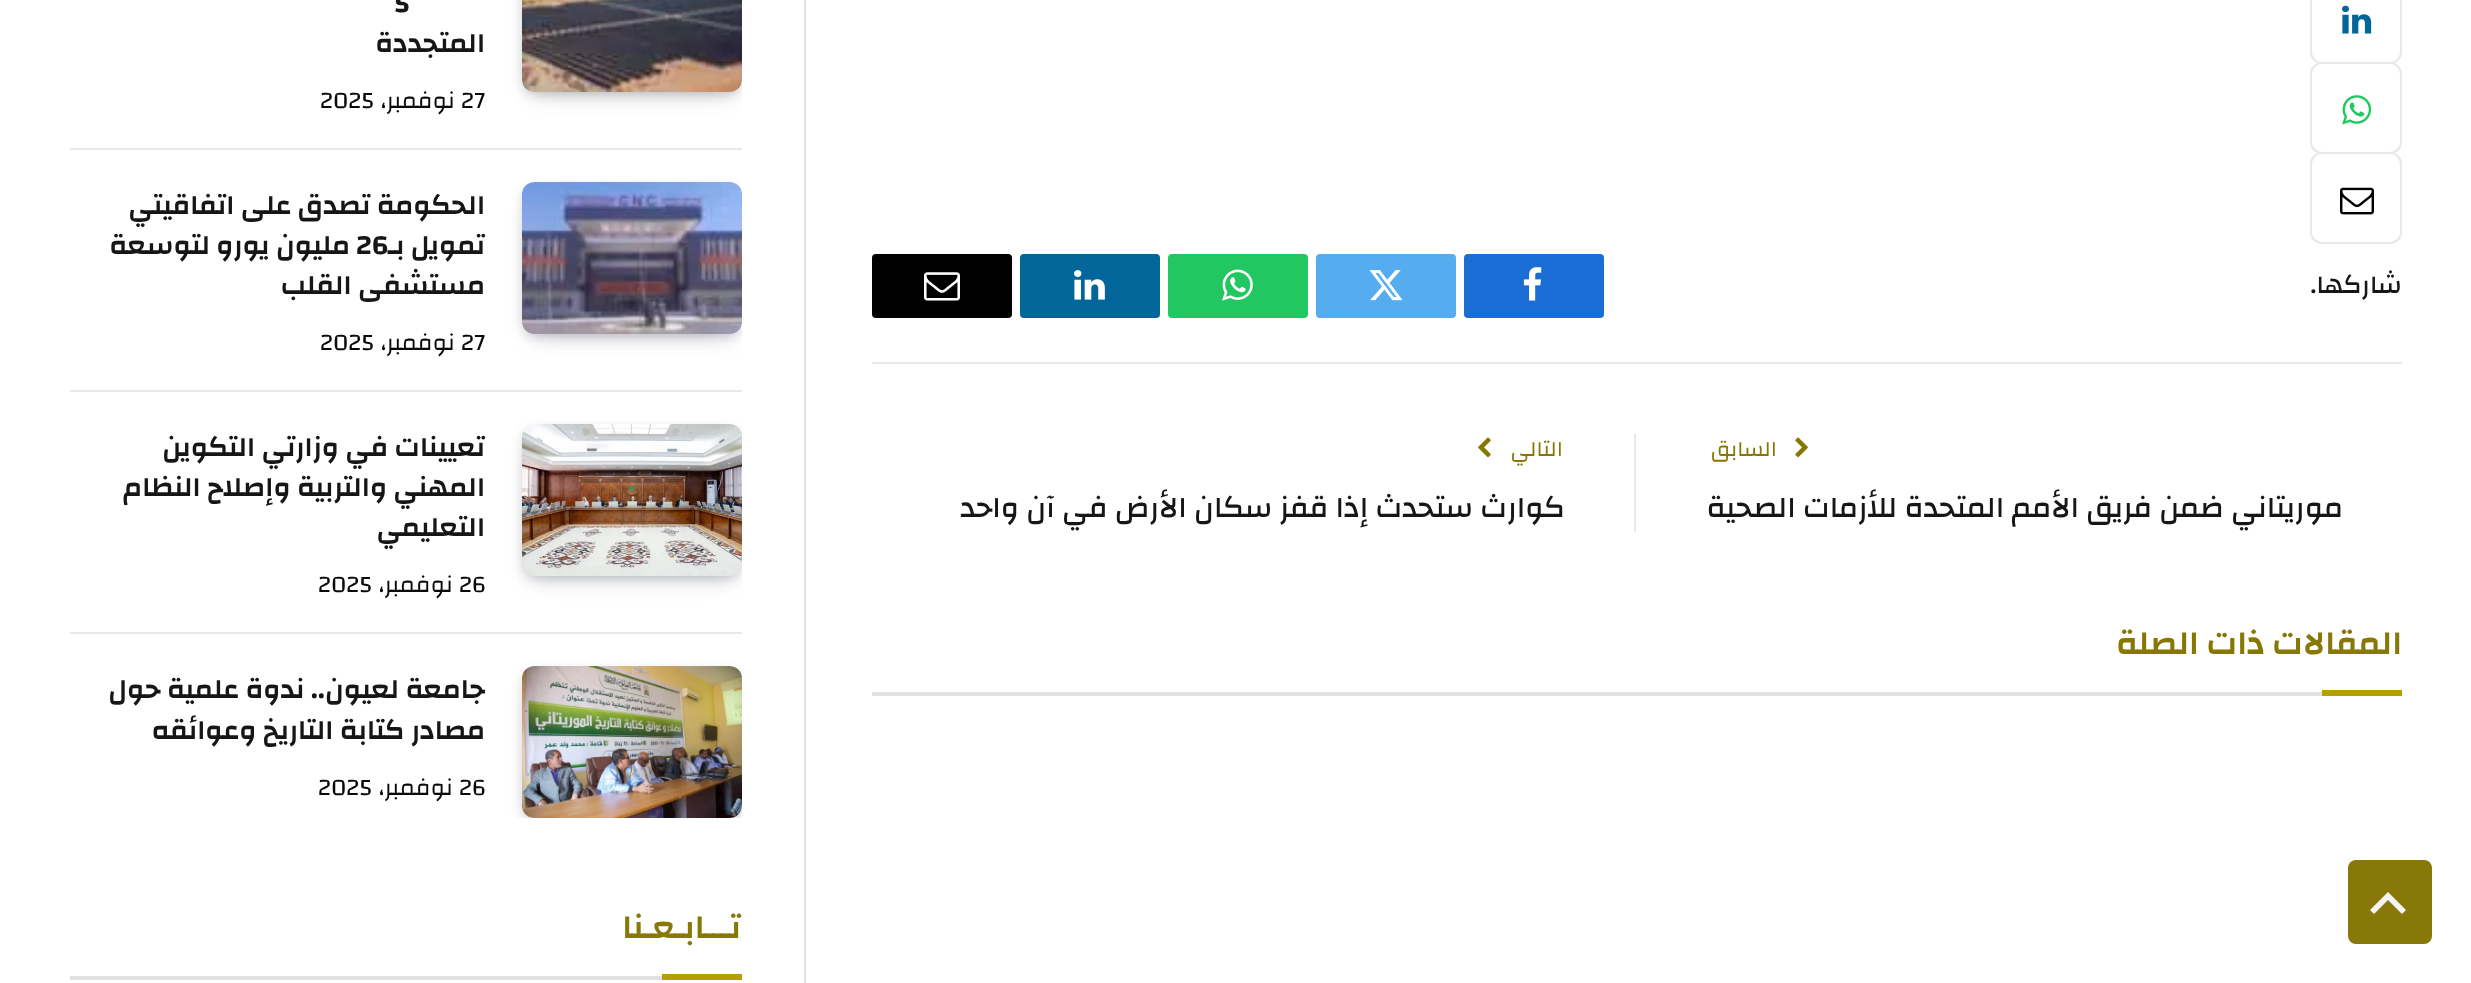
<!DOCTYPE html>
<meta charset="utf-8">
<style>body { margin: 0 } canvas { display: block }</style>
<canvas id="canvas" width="2471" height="983"></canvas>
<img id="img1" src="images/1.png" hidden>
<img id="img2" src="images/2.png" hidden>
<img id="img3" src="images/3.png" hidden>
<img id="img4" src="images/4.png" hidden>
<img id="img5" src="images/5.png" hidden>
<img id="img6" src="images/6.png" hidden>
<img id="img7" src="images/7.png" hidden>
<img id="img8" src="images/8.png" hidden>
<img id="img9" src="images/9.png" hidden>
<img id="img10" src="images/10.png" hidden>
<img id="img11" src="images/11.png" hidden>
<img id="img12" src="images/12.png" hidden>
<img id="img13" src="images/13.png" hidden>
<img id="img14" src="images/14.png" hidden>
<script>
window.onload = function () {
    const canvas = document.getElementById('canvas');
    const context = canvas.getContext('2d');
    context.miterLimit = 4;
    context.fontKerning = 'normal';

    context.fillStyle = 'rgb(255, 255, 255)';
    context.fillRect(0, 0, 2471, 983);
    context.beginPath();
    context.roundRect(2311, -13, 90, 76, 11);
    context.strokeStyle = 'rgb(232, 232, 232)';
    context.lineWidth = 2;
    context.stroke();
    context.drawImage(document.getElementById('img1'), 2342, 5, 30, 29);
    context.beginPath();
    context.roundRect(2311, 63, 90, 90, 11);
    context.stroke();
    context.drawImage(document.getElementById('img2'), 2342, 95, 30, 30);
    context.beginPath();
    context.roundRect(2311, 153, 90, 90, 11);
    context.stroke();
    context.drawImage(document.getElementById('img3'), 2340, 187, 34, 28);
    context.fillStyle = 'rgb(26, 109, 212)';
    context.beginPath();
    context.roundRect(1464, 254, 140, 64, 4);
    context.fill();
    context.drawImage(document.getElementById('img4'), 1523, 267, 19, 34);
    context.fillStyle = 'rgb(85, 172, 239)';
    context.beginPath();
    context.roundRect(1316, 254, 140, 64, 4);
    context.fill();
    context.drawImage(document.getElementById('img5'), 1369, 270, 34, 31);
    context.fillStyle = 'rgb(35, 199, 97)';
    context.beginPath();
    context.roundRect(1168, 254, 140, 64, 4);
    context.fill();
    context.drawImage(document.getElementById('img6'), 1222, 269, 31, 32);
    context.fillStyle = 'rgb(2, 102, 154)';
    context.beginPath();
    context.roundRect(1020, 254, 140, 64, 4);
    context.fill();
    context.drawImage(document.getElementById('img7'), 1074, 270, 31, 30);
    context.fillStyle = 'rgb(0, 0, 0)';
    context.beginPath();
    context.roundRect(872, 254, 140, 64, 4);
    context.fill();
    context.drawImage(document.getElementById('img8'), 924, 272, 36, 29);
    context.fillStyle = 'rgb(232, 232, 232)';
    context.fillRect(872, 362, 1530, 2);
    context.drawImage(document.getElementById('img9'), 1795, 437, 13, 21);
    context.fillRect(1634, 434, 2, 98);
    context.drawImage(document.getElementById('img10'), 1478, 437, 13, 21);
    context.fillStyle = 'rgb(226, 226, 226)';
    context.fillRect(872, 692, 1450, 4);
    context.fillStyle = 'rgb(181, 159, 0)';
    context.fillRect(2322, 690, 80, 6);
    context.fillStyle = 'rgb(226, 226, 226)';
    context.fillRect(804, 0, 2, 983);
    context.save();
    context.beginPath();
    context.rect(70, 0, 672, 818);
    context.clip();
    context.fillStyle = 'rgba(7, 10, 25, 0.2)';
    context.filter = 'blur(12px)';
    context.beginPath();
    context.rect(534, -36, 196, 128);
    context.fill();
    context.filter = 'none';
    context.filter = 'blur(6px)';
    context.beginPath();
    context.roundRect(524, -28, 216, 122, 10);
    context.fill();
    context.filter = 'none';
    context.restore();
    context.drawImage(document.getElementById('img11'), 522, 0, 220, 92);
    context.fillStyle = 'rgb(232, 232, 232)';
    context.fillRect(70, 148, 672, 2);
    context.save();
    context.beginPath();
    context.rect(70, 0, 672, 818);
    context.clip();
    context.fillStyle = 'rgba(7, 10, 25, 0.2)';
    context.filter = 'blur(12px)';
    context.beginPath();
    context.rect(534, 206, 196, 128);
    context.fill();
    context.filter = 'none';
    context.filter = 'blur(6px)';
    context.beginPath();
    context.roundRect(524, 188, 216, 148, 10);
    context.fill();
    context.filter = 'none';
    context.restore();
    context.drawImage(document.getElementById('img12'), 522, 182, 220, 152);
    context.fillRect(70, 390, 672, 2);
    context.save();
    context.beginPath();
    context.rect(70, 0, 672, 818);
    context.clip();
    context.fillStyle = 'rgba(7, 10, 25, 0.2)';
    context.filter = 'blur(12px)';
    context.beginPath();
    context.rect(534, 448, 196, 128);
    context.fill();
    context.filter = 'none';
    context.filter = 'blur(6px)';
    context.beginPath();
    context.roundRect(524, 430, 216, 148, 10);
    context.fill();
    context.filter = 'none';
    context.restore();
    context.drawImage(document.getElementById('img13'), 522, 424, 220, 152);
    context.fillRect(70, 632, 672, 2);
    context.save();
    context.beginPath();
    context.rect(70, 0, 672, 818);
    context.clip();
    context.fillStyle = 'rgba(7, 10, 25, 0.2)';
    context.filter = 'blur(12px)';
    context.beginPath();
    context.rect(534, 690, 196, 128);
    context.fill();
    context.filter = 'none';
    context.filter = 'blur(6px)';
    context.beginPath();
    context.roundRect(524, 672, 216, 148, 10);
    context.fill();
    context.filter = 'none';
    context.restore();
    context.drawImage(document.getElementById('img14'), 522, 666, 220, 152);
    context.fillStyle = 'rgb(226, 226, 226)';
    context.fillRect(70, 976, 592, 4);
    context.fillStyle = 'rgb(181, 159, 0)';
    context.fillRect(662, 974, 80, 6);
    context.fillStyle = 'rgb(135, 120, 8)';
    context.beginPath();
    context.roundRect(2348, 860, 84, 84, 8);
    context.fill();
    context.fillStyle = 'rgb(244, 244, 244)';
    context.beginPath();
    context.moveTo(2402, 914);
    context.lineTo(2388, 900);
    context.lineTo(2374, 914);
    context.lineTo(2370, 910);
    context.lineTo(2388, 892);
    context.lineTo(2406, 910);
    context.closePath();
    context.fill();
    context.direction = 'rtl';
    context.font = '500 26px Changa';
    context.fillStyle = 'rgb(22, 22, 22)';
    context.fillText('شاركها.', 2402, 293);
    context.letterSpacing = '0.5px';
    context.font = '22px Changa';
    context.fillStyle = 'rgb(135, 119, 0)';
    context.fillText('السابق', 1777, 456);
    context.letterSpacing = '0px';
    context.font = '500 30px Changa';
    context.fillStyle = 'rgb(22, 22, 22)';
    context.fillText('موريتاني ضمن فريق الأمم المتحدة للأزمات الصحية', 2343, 517);
    context.letterSpacing = '0.5px';
    context.font = '22px Changa';
    context.fillStyle = 'rgb(135, 119, 0)';
    context.fillText('التالي', 1563, 456);
    context.letterSpacing = '0px';
    context.font = '500 30px Changa';
    context.fillStyle = 'rgb(22, 22, 22)';
    context.fillText('كوارث ستحدث إذا قفز سكان الأرض في آن واحد', 1565, 517);
    context.font = '600 34px Changa';
    context.fillStyle = 'rgb(135, 120, 8)';
    context.fillText('المقالات', 2402, 654);
    context.fillStyle = 'rgb(135, 119, 0)';
    context.fillText('ذات الصلة', 2265, 654);
    context.direction = 'ltr';
    context.font = '600 28px Changa';
    context.fillStyle = 'rgb(22, 22, 22)';
    context.fillText('5', 394, 12);
    context.direction = 'rtl';
    context.fillText('المتجددة', 485, 52);
    context.direction = 'ltr';
    context.font = '24px Changa';
    context.fillStyle = 'rgb(10, 10, 10)';
    context.fillText('27', 461, 108);
    context.direction = 'rtl';
    context.fillText('نوفمبر،', 455, 108);
    context.direction = 'ltr';
    context.fillText('2025', 320, 108);
    context.direction = 'rtl';
    context.font = '600 28px Changa';
    context.fillStyle = 'rgb(22, 22, 22)';
    context.fillText('الحكومة تصدق على اتفاقيتي', 485, 214);
    context.direction = 'ltr';
    context.fillText('26', 356, 254);
    context.direction = 'rtl';
    context.fillText('تمويل بـ', 485, 254);
    context.fillText('مليون يورو لتوسعة', 350, 254);
    context.fillText('مستشفى القلب', 485, 294);
    context.direction = 'ltr';
    context.font = '24px Changa';
    context.fillStyle = 'rgb(10, 10, 10)';
    context.fillText('27', 461, 350);
    context.direction = 'rtl';
    context.fillText('نوفمبر،', 455, 350);
    context.direction = 'ltr';
    context.fillText('2025', 320, 350);
    context.direction = 'rtl';
    context.font = '600 28px Changa';
    context.fillStyle = 'rgb(22, 22, 22)';
    context.fillText('تعيينات في وزارتي التكوين', 485, 456);
    context.fillText('المهني والتربية وإصلاح النظام', 485, 496);
    context.fillText('التعليمي', 485, 536);
    context.direction = 'ltr';
    context.font = '24px Changa';
    context.fillStyle = 'rgb(10, 10, 10)';
    context.fillText('26', 459, 592);
    context.direction = 'rtl';
    context.fillText('نوفمبر،', 453, 592);
    context.direction = 'ltr';
    context.fillText('2025', 318, 592);
    context.direction = 'rtl';
    context.font = '600 28px Changa';
    context.fillStyle = 'rgb(22, 22, 22)';
    context.fillText('جامعة لعيون.. ندوة علمية حول', 485, 698);
    context.fillText('مصادر كتابة التاريخ وعوائقه', 485, 739);
    context.direction = 'ltr';
    context.font = '24px Changa';
    context.fillStyle = 'rgb(10, 10, 10)';
    context.fillText('26', 459, 795);
    context.direction = 'rtl';
    context.fillText('نوفمبر،', 453, 795);
    context.direction = 'ltr';
    context.fillText('2025', 318, 795);
    context.direction = 'rtl';
    context.font = '600 34px Changa';
    context.fillStyle = 'rgb(135, 120, 8)';
    context.fillText('تـــابـعـنا', 741, 938);
};
</script>
